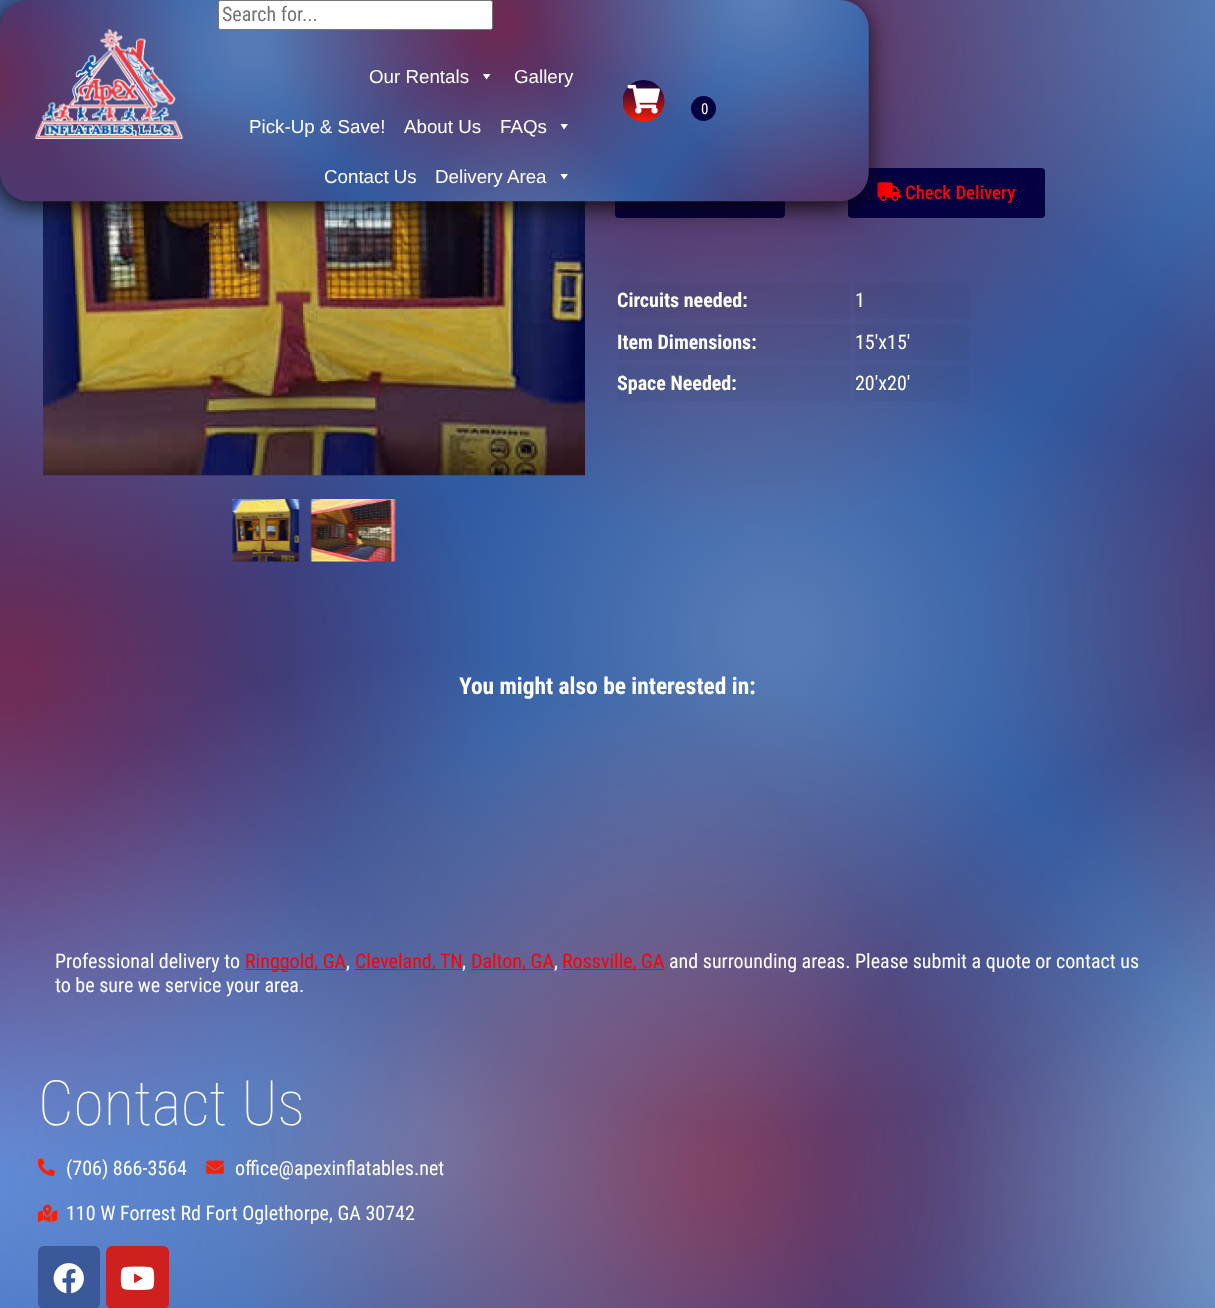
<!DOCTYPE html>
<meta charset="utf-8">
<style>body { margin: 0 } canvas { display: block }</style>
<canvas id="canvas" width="1215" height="1308"></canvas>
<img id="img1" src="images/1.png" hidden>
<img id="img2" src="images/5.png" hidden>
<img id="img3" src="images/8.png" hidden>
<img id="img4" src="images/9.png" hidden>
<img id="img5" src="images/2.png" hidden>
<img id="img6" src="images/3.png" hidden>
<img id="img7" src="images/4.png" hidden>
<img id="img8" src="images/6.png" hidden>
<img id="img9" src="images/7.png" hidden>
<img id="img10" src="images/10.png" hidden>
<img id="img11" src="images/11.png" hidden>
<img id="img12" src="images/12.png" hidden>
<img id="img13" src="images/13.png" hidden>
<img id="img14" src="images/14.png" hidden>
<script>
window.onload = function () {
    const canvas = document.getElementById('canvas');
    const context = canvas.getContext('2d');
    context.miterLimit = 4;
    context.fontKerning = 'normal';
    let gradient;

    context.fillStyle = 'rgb(255, 255, 255)';
    context.fillRect(0, 0, 1215, 1308);
    context.drawImage(document.getElementById('img1'), 0, 0, 1215, 1308);
    context.drawImage(document.getElementById('img2'), 43, 201, 542, 275);
    context.fillStyle = 'rgb(4, 0, 65)';
    context.beginPath();
    context.roundRect(615, 168, 170, 50, 4);
    context.fill();
    context.drawImage(document.getElementById('img3'), 652, 201, 11, 1);
    context.beginPath();
    context.roundRect(848, 168, 197, 50, 4);
    context.fill();
    context.drawImage(document.getElementById('img4'), 877, 182, 24, 20);
    context.fillStyle = 'rgb(11, 6, 6)';
    context.filter = 'blur(13px)';
    context.beginPath();
    context.roundRect(-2, 5, 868, 201, 29);
    context.fill();
    context.filter = 'none';
    context.drawImage(document.getElementById('img5'), 0, 0, 869, 202);
    context.drawImage(document.getElementById('img6'), 34, 28, 150, 111);
    context.fillStyle = 'rgb(255, 255, 255)';
    context.beginPath();
    context.roundRect(218.5, 0.5, 274, 29, 2);
    context.fill();
    context.strokeStyle = 'rgb(118, 118, 118)';
    context.stroke();
    context.beginPath();
    context.moveTo(490.5, 74);
    context.lineTo(486.5, 79.5);
    context.lineTo(483, 74);
    context.closePath();
    context.fill();
    context.beginPath();
    context.moveTo(568, 124);
    context.lineTo(564, 129.5);
    context.lineTo(560.5, 124);
    context.closePath();
    context.fill();
    context.beginPath();
    context.moveTo(568, 174);
    context.lineTo(564, 179.5);
    context.lineTo(560.5, 174);
    context.closePath();
    context.fill();
    context.save();
    context.beginPath();
    context.rect(623, 80, 42, 41);
    context.clip();
    gradient = context.createLinearGradient(643, 80, 643, 122);
    gradient.addColorStop(0, 'rgb(4, 0, 65)');
    gradient.addColorStop(1, 'rgb(255, 30, 0)');
    context.fillStyle = gradient;
    context.beginPath();
    context.arc(643.5, 101, 21, 0, 2 * Math.PI);
    context.fill();
    context.restore();
    context.drawImage(document.getElementById('img7'), 627, 84, 33, 30);
    context.fillStyle = 'rgb(4, 0, 65)';
    context.beginPath();
    context.arc(703.5, 108.5, 12.5, 0, 2 * Math.PI);
    context.fill();
    context.drawImage(document.getElementById('img8'), 232, 499, 68, 63);
    context.drawImage(document.getElementById('img9'), 310, 499, 86, 63);
    context.fillStyle = 'rgba(0, 0, 0, 0.03)';
    context.fillRect(618, 283, 232, 36);
    context.fillRect(855, 283, 114, 36);
    context.fillRect(618, 324, 232, 36);
    context.fillRect(855, 324, 114, 36);
    context.fillRect(618, 365, 232, 36);
    context.fillRect(855, 365, 114, 36);
    context.fillStyle = 'rgb(255, 0, 0)';
    context.fillRect(245, 969, 101, 1);
    context.fillRect(355, 969, 108, 1);
    context.fillRect(471, 969, 83, 1);
    context.fillRect(563, 969, 102, 1);
    context.drawImage(document.getElementById('img10'), 38, 1158, 17, 18);
    context.drawImage(document.getElementById('img11'), 206, 1160, 18, 14);
    context.drawImage(document.getElementById('img12'), 38, 1204, 20, 19);
    context.fillStyle = 'rgb(59, 89, 152)';
    context.beginPath();
    context.roundRect(38, 1246, 62, 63, 6);
    context.fill();
    context.drawImage(document.getElementById('img13'), 53, 1263, 31, 31);
    context.fillStyle = 'rgb(205, 32, 31)';
    context.beginPath();
    context.roundRect(106, 1246, 63, 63, 6);
    context.fill();
    context.drawImage(document.getElementById('img14'), 120, 1266, 35, 24);
    context.font = '20px Roboto Condensed';
    context.fillStyle = 'rgb(117, 117, 117)';
    context.fillText('Search for...', 222, 21);
    context.font = '18.75px Liberation Sans';
    context.fillStyle = 'rgb(255, 255, 255)';
    context.fillText('Our Rentals', 369, 83);
    context.fillText('Gallery', 514, 83);
    context.fillText('Pick-Up & Save!', 249, 133);
    context.fillText('About Us', 404, 133);
    context.fillText('FAQs', 500, 133);
    context.fillText('Contact Us', 324, 183);
    context.fillText('Delivery Area', 435, 183);
    context.font = '15px Roboto Condensed';
    context.fillText('0', 701, 114);
    context.font = '500 18.75px Roboto Condensed';
    context.fillStyle = 'rgb(255, 0, 0)';
    context.fillText('Check Delivery', 905, 199);
    context.font = 'bold 20px Roboto Condensed';
    context.fillStyle = 'rgb(255, 255, 255)';
    context.fillText('Circuits needed:', 617, 307);
    context.font = '20px Roboto Condensed';
    context.fillText('1', 855, 307);
    context.font = 'bold 20px Roboto Condensed';
    context.fillText('Item Dimensions:', 617, 349);
    context.font = '20px Roboto Condensed';
    context.fillText('15\'x15\'', 855, 349);
    context.font = 'bold 20px Roboto Condensed';
    context.fillText('Space Needed:', 617, 390);
    context.font = '20px Roboto Condensed';
    context.fillText('20\'x20\'', 855, 390);
    context.font = 'bold 23.4px Roboto Condensed';
    context.fillText('You might also be interested in:', 459, 694);
    context.font = '20px Roboto Condensed';
    context.fillText('Professional delivery to', 55, 968);
    context.fillStyle = 'rgb(255, 0, 0)';
    context.fillText('Ringgold, GA', 245, 968);
    context.fillStyle = 'rgb(255, 255, 255)';
    context.fillText(',', 346, 968);
    context.fillStyle = 'rgb(255, 0, 0)';
    context.fillText('Cleveland, TN', 355, 968);
    context.fillStyle = 'rgb(255, 255, 255)';
    context.fillText(',', 462, 968);
    context.fillStyle = 'rgb(255, 0, 0)';
    context.fillText('Dalton, GA', 471, 968);
    context.fillStyle = 'rgb(255, 255, 255)';
    context.fillText(',', 554, 968);
    context.fillStyle = 'rgb(255, 0, 0)';
    context.fillText('Rossville, GA', 562, 968);
    context.fillStyle = 'rgb(255, 255, 255)';
    context.fillText('and surrounding areas. Please submit a quote or contact us', 669, 968);
    context.fillText('to be sure we service your area.', 55, 992);
    context.font = '100 62.5px Roboto Condensed';
    context.fillText('Contact Us', 38, 1125);
    context.font = '20px Roboto Condensed';
    context.fillText('(706) 866-3564', 66, 1175);
    context.fillText('office@apexinflatables.net', 235, 1175);
    context.fillText('110 W Forrest Rd Fort Oglethorpe, GA 30742', 66, 1220);
};
</script>
